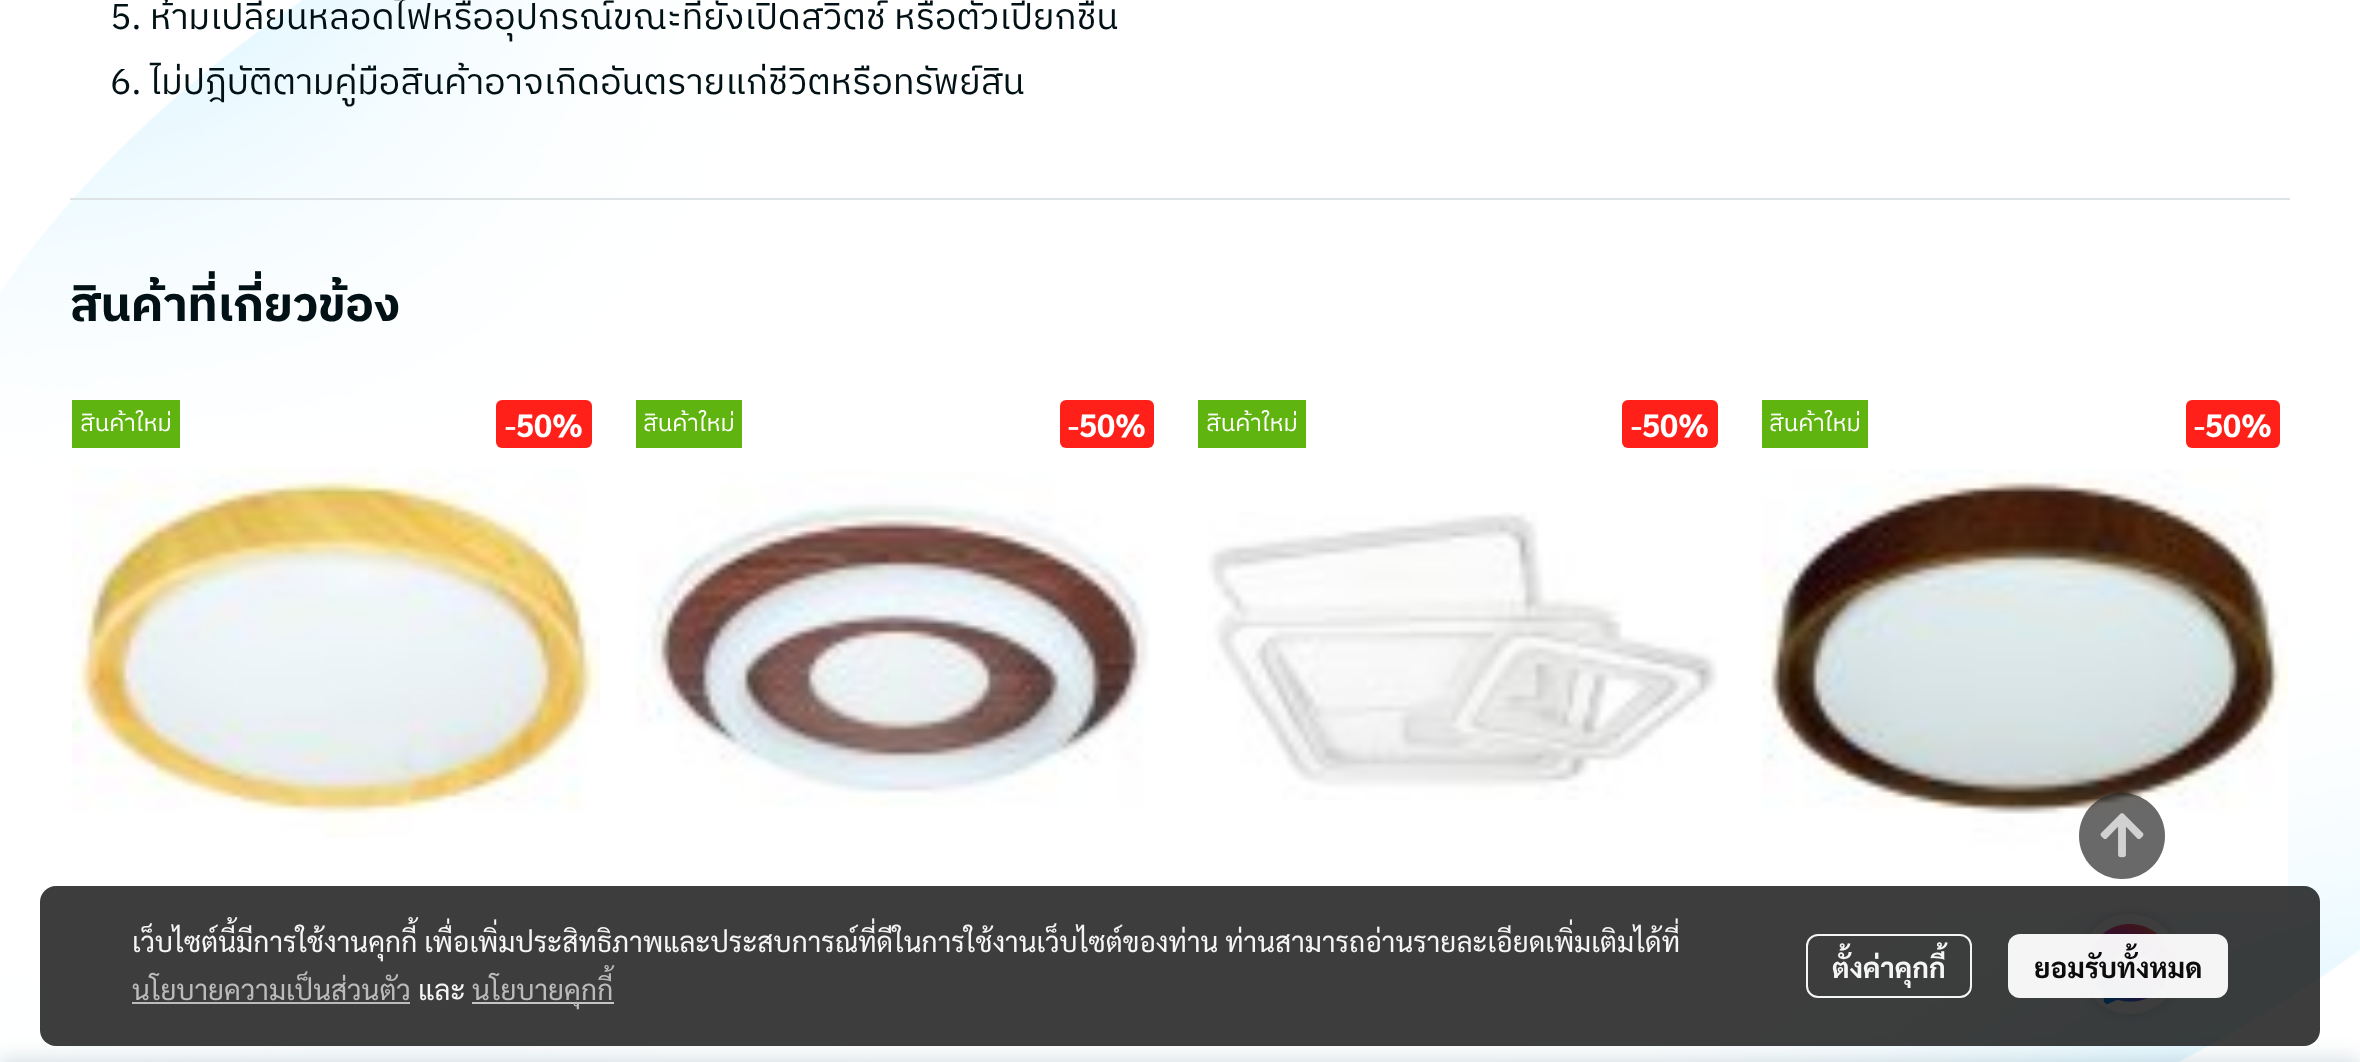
<!DOCTYPE html>
<meta charset="utf-8">
<style>body { margin: 0 } canvas { display: block }</style>
<canvas id="canvas" width="2360" height="1062"></canvas>
<img id="img1" src="images/1.png" hidden>
<img id="img2" src="images/2.png" hidden>
<img id="img3" src="images/3.png" hidden>
<img id="img4" src="images/4.png" hidden>
<img id="img5" src="images/5.png" hidden>
<img id="img6" src="images/6.png" hidden>
<img id="img7" src="images/7.png" hidden>
<script>
window.onload = function () {
    const canvas = document.getElementById('canvas');
    const context = canvas.getContext('2d');
    context.miterLimit = 4;
    context.fontKerning = 'normal';

    context.fillStyle = 'rgb(255, 255, 255)';
    context.fillRect(0, 0, 2360, 1062);
    context.drawImage(document.getElementById('img1'), 0, 0, 2360, 1062);
    context.fillStyle = 'rgb(222, 227, 230)';
    context.fillRect(70, 198, 2220, 2);
    context.fillStyle = 'rgb(96, 180, 15)';
    context.fillRect(72, 400, 108, 48);
    context.fillStyle = 'rgb(255, 32, 26)';
    context.beginPath();
    context.roundRect(496, 400, 96, 48, 6);
    context.fill();
    context.drawImage(document.getElementById('img2'), 72, 467, 528, 371);
    context.fillStyle = 'rgb(96, 180, 15)';
    context.fillRect(636, 400, 106, 48);
    context.fillStyle = 'rgb(255, 32, 26)';
    context.beginPath();
    context.roundRect(1060, 400, 94, 48, 6);
    context.fill();
    context.drawImage(document.getElementById('img3'), 636, 471, 514, 336);
    context.fillStyle = 'rgb(96, 180, 15)';
    context.fillRect(1198, 400, 108, 48);
    context.fillStyle = 'rgb(255, 32, 26)';
    context.beginPath();
    context.roundRect(1622, 400, 96, 48, 6);
    context.fill();
    context.drawImage(document.getElementById('img4'), 1207, 512, 511, 288);
    context.fillStyle = 'rgb(96, 180, 15)';
    context.fillRect(1762, 400, 106, 48);
    context.fillStyle = 'rgb(255, 32, 26)';
    context.beginPath();
    context.roundRect(2186, 400, 94, 48, 6);
    context.fill();
    context.drawImage(document.getElementById('img5'), 1762, 469, 526, 443);
    context.fillStyle = 'rgba(0, 0, 0, 0.14)';
    context.filter = 'blur(7px)';
    context.beginPath();
    context.roundRect(2080, 914, 100, 100, 50);
    context.fill();
    context.filter = 'none';
    context.fillStyle = 'rgb(255, 255, 255)';
    context.beginPath();
    context.arc(2130, 964, 50, 0, 2 * Math.PI);
    context.fill();
    context.drawImage(document.getElementById('img6'), 2090, 924, 80, 80);
    context.fillStyle = 'rgba(43, 42, 42, 0.7)';
    context.beginPath();
    context.moveTo(2122, 793);
    context.bezierCurveTo(2098, 793, 2079, 812, 2079, 836);
    context.bezierCurveTo(2079, 860, 2098, 879, 2122, 879);
    context.bezierCurveTo(2146, 879, 2165, 860, 2165, 836);
    context.bezierCurveTo(2165, 812, 2146, 793, 2122, 793);
    context.closePath();
    context.fill();
    context.drawImage(document.getElementById('img7'), 2100, 813, 44, 45);
    context.fillStyle = 'rgba(0, 53, 74, 0.15)';
    context.filter = 'blur(10px)';
    context.beginPath();
    context.rect(0, 1058, 2360, 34);
    context.fill();
    context.filter = 'none';
    context.fillStyle = 'rgba(0, 0, 0, 0.76)';
    context.beginPath();
    context.roundRect(40, 886, 2280, 160, 16);
    context.fill();
    context.fillStyle = 'rgba(194, 194, 194, 0.95)';
    context.fillRect(132, 1002, 278, 2);
    context.fillStyle = 'rgb(197, 197, 197)';
    context.fillRect(472, 1002, 142, 2);
    context.beginPath();
    context.roundRect(1807, 935, 164, 62, 11);
    context.strokeStyle = 'rgba(255, 255, 255, 0.95)';
    context.lineWidth = 2;
    context.stroke();
    context.fillStyle = 'rgba(255, 255, 255, 0.95)';
    context.beginPath();
    context.roundRect(2008, 934, 220, 64, 12);
    context.fill();
    context.font = '36px IBM Plex Sans Thai';
    context.fillStyle = 'rgb(2, 17, 21)';
    context.fillText('5. ห้ามเปลี่ยนหลอดไฟหรืออุปกรณ์ขณะที่ยังเปิดสวิตช์ หรือตัวเปียกชื้น', 110, 29);
    context.fillText('6. ไม่ปฎิบัติตามคู่มือสินค้าอาจเกิดอันตรายแก่ชีวิตหรือทรัพย์สิน', 110, 94);
    context.font = 'bold 48px IBM Plex Sans Thai';
    context.fillText('สินค้าที่เกี่ยวข้อง', 70, 321);
    context.save();
    context.beginPath();
    context.rect(72, 384, 528, 528);
    context.clip();
    context.font = '24px IBM Plex Sans Thai';
    context.fillStyle = 'rgb(255, 255, 255)';
    context.fillText('สินค้าใหม่', 80, 431);
    context.restore();
    context.font = 'bold 32px Sarabun';
    context.fillStyle = 'rgb(255, 255, 255)';
    context.fillText('-50%', 505, 437);
    context.save();
    context.beginPath();
    context.rect(636, 384, 526, 528);
    context.clip();
    context.font = '24px IBM Plex Sans Thai';
    context.fillText('สินค้าใหม่', 643, 431);
    context.restore();
    context.fillText('-50%', 1068, 437);
    context.save();
    context.beginPath();
    context.rect(1198, 384, 528, 528);
    context.clip();
    context.font = '24px IBM Plex Sans Thai';
    context.fillText('สินค้าใหม่', 1206, 431);
    context.restore();
    context.fillText('-50%', 1631, 437);
    context.save();
    context.beginPath();
    context.rect(1762, 384, 526, 528);
    context.clip();
    context.font = '24px IBM Plex Sans Thai';
    context.fillText('สินค้าใหม่', 1769, 431);
    context.restore();
    context.fillText('-50%', 2194, 437);
    context.font = '28px Sarabun';
    context.fillStyle = 'rgb(245, 245, 245)';
    context.fillText('เว็บไซต์นี้มีการใช้งานคุกกี้ เพื่อเพิ่มประสิทธิภาพและประสบการณ์ที่ดีในการใช้งานเว็บไซต์ของท่าน ท่านสามารถอ่านรายละเอียดเพิ่มเติมได้ที่', 132, 952);
    context.fillStyle = 'rgb(187, 187, 187)';
    context.fillText('นโยบายความเป็นส่วนตัว', 132, 1000);
    context.fillStyle = 'rgb(245, 245, 245)';
    context.fillText('และ', 418, 1000);
    context.fillStyle = 'rgb(187, 187, 187)';
    context.fillText('นโยบายคุกกี้', 472, 1000);
    context.font = 'bold 28px Sarabun';
    context.fillStyle = 'rgb(245, 245, 245)';
    context.fillText('ตั้งค่าคุกกี้', 1832, 978);
    context.fillStyle = 'rgb(12, 12, 12)';
    context.fillText('ยอมรับทั้งหมด', 2034, 978);
};
</script>
